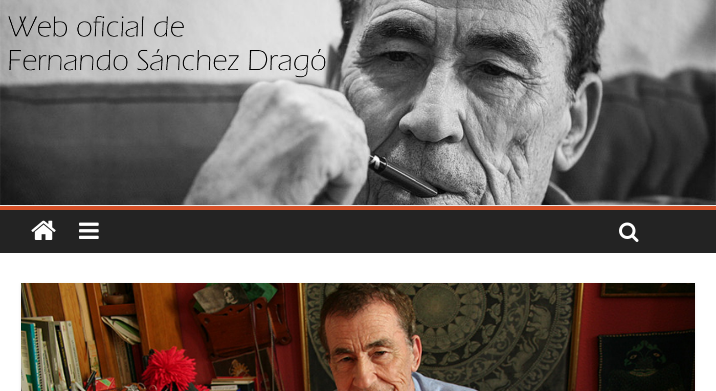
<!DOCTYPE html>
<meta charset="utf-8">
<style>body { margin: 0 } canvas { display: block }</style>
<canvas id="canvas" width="716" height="391"></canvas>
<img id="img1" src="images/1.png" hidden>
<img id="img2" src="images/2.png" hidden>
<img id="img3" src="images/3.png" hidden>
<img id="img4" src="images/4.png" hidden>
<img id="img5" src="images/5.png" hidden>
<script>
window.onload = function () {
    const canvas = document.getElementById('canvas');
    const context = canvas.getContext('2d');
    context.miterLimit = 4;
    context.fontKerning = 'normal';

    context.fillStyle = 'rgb(255, 255, 255)';
    context.fillRect(0, 0, 716, 391);
    context.drawImage(document.getElementById('img1'), 0, 0, 716, 205);
    context.fillStyle = 'rgb(234, 234, 234)';
    context.fillRect(0, 205, 716, 1);
    context.fillStyle = 'rgb(35, 35, 35)';
    context.fillRect(0, 210, 716, 43);
    context.fillStyle = 'rgb(216, 82, 41)';
    context.fillRect(0, 206, 716, 4);
    context.drawImage(document.getElementById('img2'), 31, 220, 25, 20);
    context.drawImage(document.getElementById('img3'), 79, 222, 20, 17);
    context.drawImage(document.getElementById('img4'), 619, 222, 20, 20);
    context.fillStyle = 'rgba(0, 0, 0, 0.1)';
    context.filter = 'blur(1.5px)';
    context.beginPath();
    context.rect(21, 284, 674, 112);
    context.fill();
    context.filter = 'none';
    context.drawImage(document.getElementById('img5'), 21, 283, 674, 108);
};
</script>
